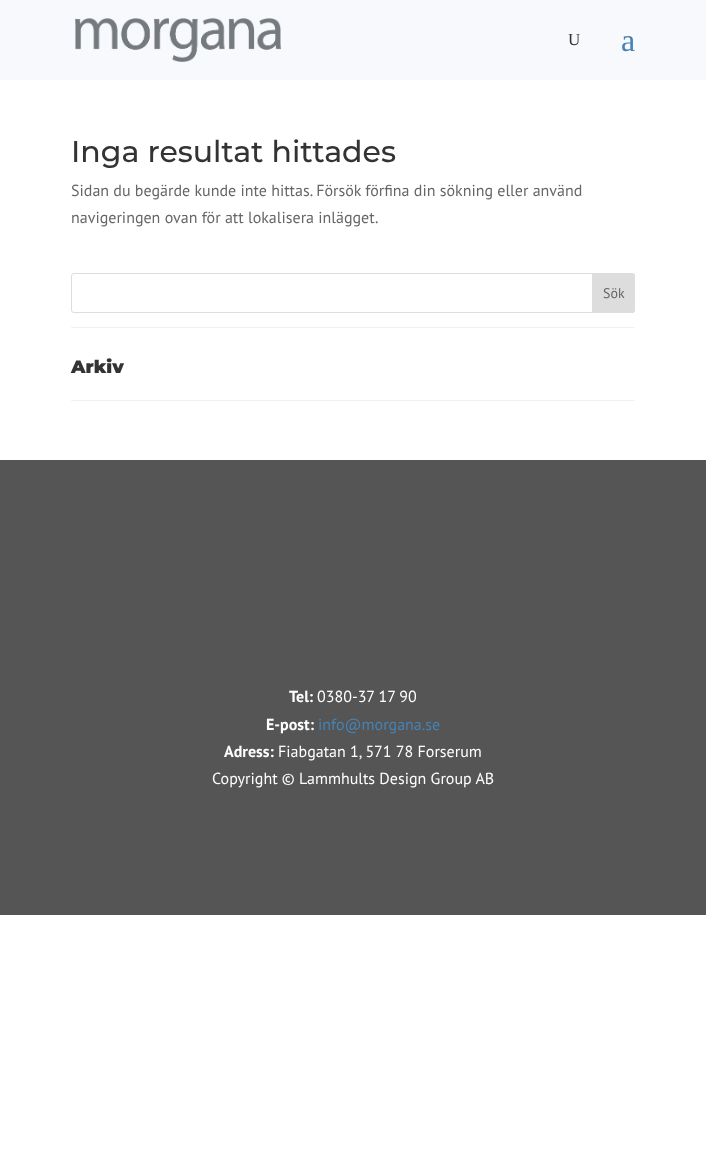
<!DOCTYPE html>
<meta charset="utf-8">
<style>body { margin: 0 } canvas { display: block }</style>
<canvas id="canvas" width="706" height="1167"></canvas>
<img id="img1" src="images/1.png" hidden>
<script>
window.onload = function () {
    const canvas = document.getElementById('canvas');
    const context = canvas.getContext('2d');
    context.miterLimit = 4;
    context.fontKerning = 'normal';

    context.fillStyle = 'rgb(255, 255, 255)';
    context.fillRect(0, 0, 706, 1167);
    context.fillStyle = 'rgb(248, 249, 252)';
    context.fillRect(0, 0, 706, 80);
    context.drawImage(document.getElementById('img1'), 75, 18, 206, 44);
    context.fillStyle = 'rgb(242, 242, 242)';
    context.fillRect(71, 327, 564, 1);
    context.beginPath();
    context.roundRect(71.5, 273.5, 563, 39, 2.5);
    context.strokeStyle = 'rgb(221, 221, 221)';
    context.stroke();
    context.fillStyle = 'rgb(221, 221, 221)';
    context.beginPath();
    context.roundRect(592.5, 273.5, 42, 39, [0, 2.5, 2.5, 0]);
    context.fill();
    context.stroke();
    context.fillStyle = 'rgb(242, 242, 242)';
    context.fillRect(71, 400, 564, 1);
    context.fillStyle = 'rgb(85, 85, 85)';
    context.fillRect(0, 460, 706, 455);
    context.font = '17px Liberation Serif';
    context.fillStyle = 'rgb(51, 51, 51)';
    context.fillText('U', 568, 45);
    context.font = '32px Liberation Serif';
    context.fillStyle = 'rgb(70, 130, 180)';
    context.fillText('a', 621, 51);
    context.font = '100 30px Montserrat';
    context.fillStyle = 'rgb(51, 51, 51)';
    context.fillText('Inga resultat hittades', 71, 162);
    context.font = '16px PT Sans';
    context.fillStyle = 'rgb(102, 102, 102)';
    context.fillText('Sidan du begärde kunde inte hittas. Försök förfina din sökning eller använd', 71, 196);
    context.fillText('navigeringen ovan för att lokalisera inlägget.', 71, 223);
    context.font = '14px PT Sans';
    context.fillText('Sök', 603, 298);
    context.font = '100 18px "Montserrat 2"';
    context.fillStyle = 'rgb(51, 51, 51)';
    context.fillText('Arkiv', 71, 373);
    context.font = 'bold 16px PT Sans';
    context.fillStyle = 'rgb(255, 255, 255)';
    context.fillText('Tel:', 289, 702);
    context.font = '16px PT Sans';
    context.fillText('0380-37 17 90', 317, 702);
    context.font = 'bold 16px PT Sans';
    context.fillText('E-post:', 266, 730);
    context.font = '16px PT Sans';
    context.fillStyle = 'rgb(70, 130, 180)';
    context.fillText('info@morgana.se', 318, 730);
    context.font = 'bold 16px PT Sans';
    context.fillStyle = 'rgb(255, 255, 255)';
    context.fillText('Adress:', 224, 757);
    context.font = '16px PT Sans';
    context.fillText('Fiabgatan 1, 571 78 Forserum', 278, 757);
    context.fillText('Copyright © Lammhults Design Group AB', 212, 784);
};
</script>
